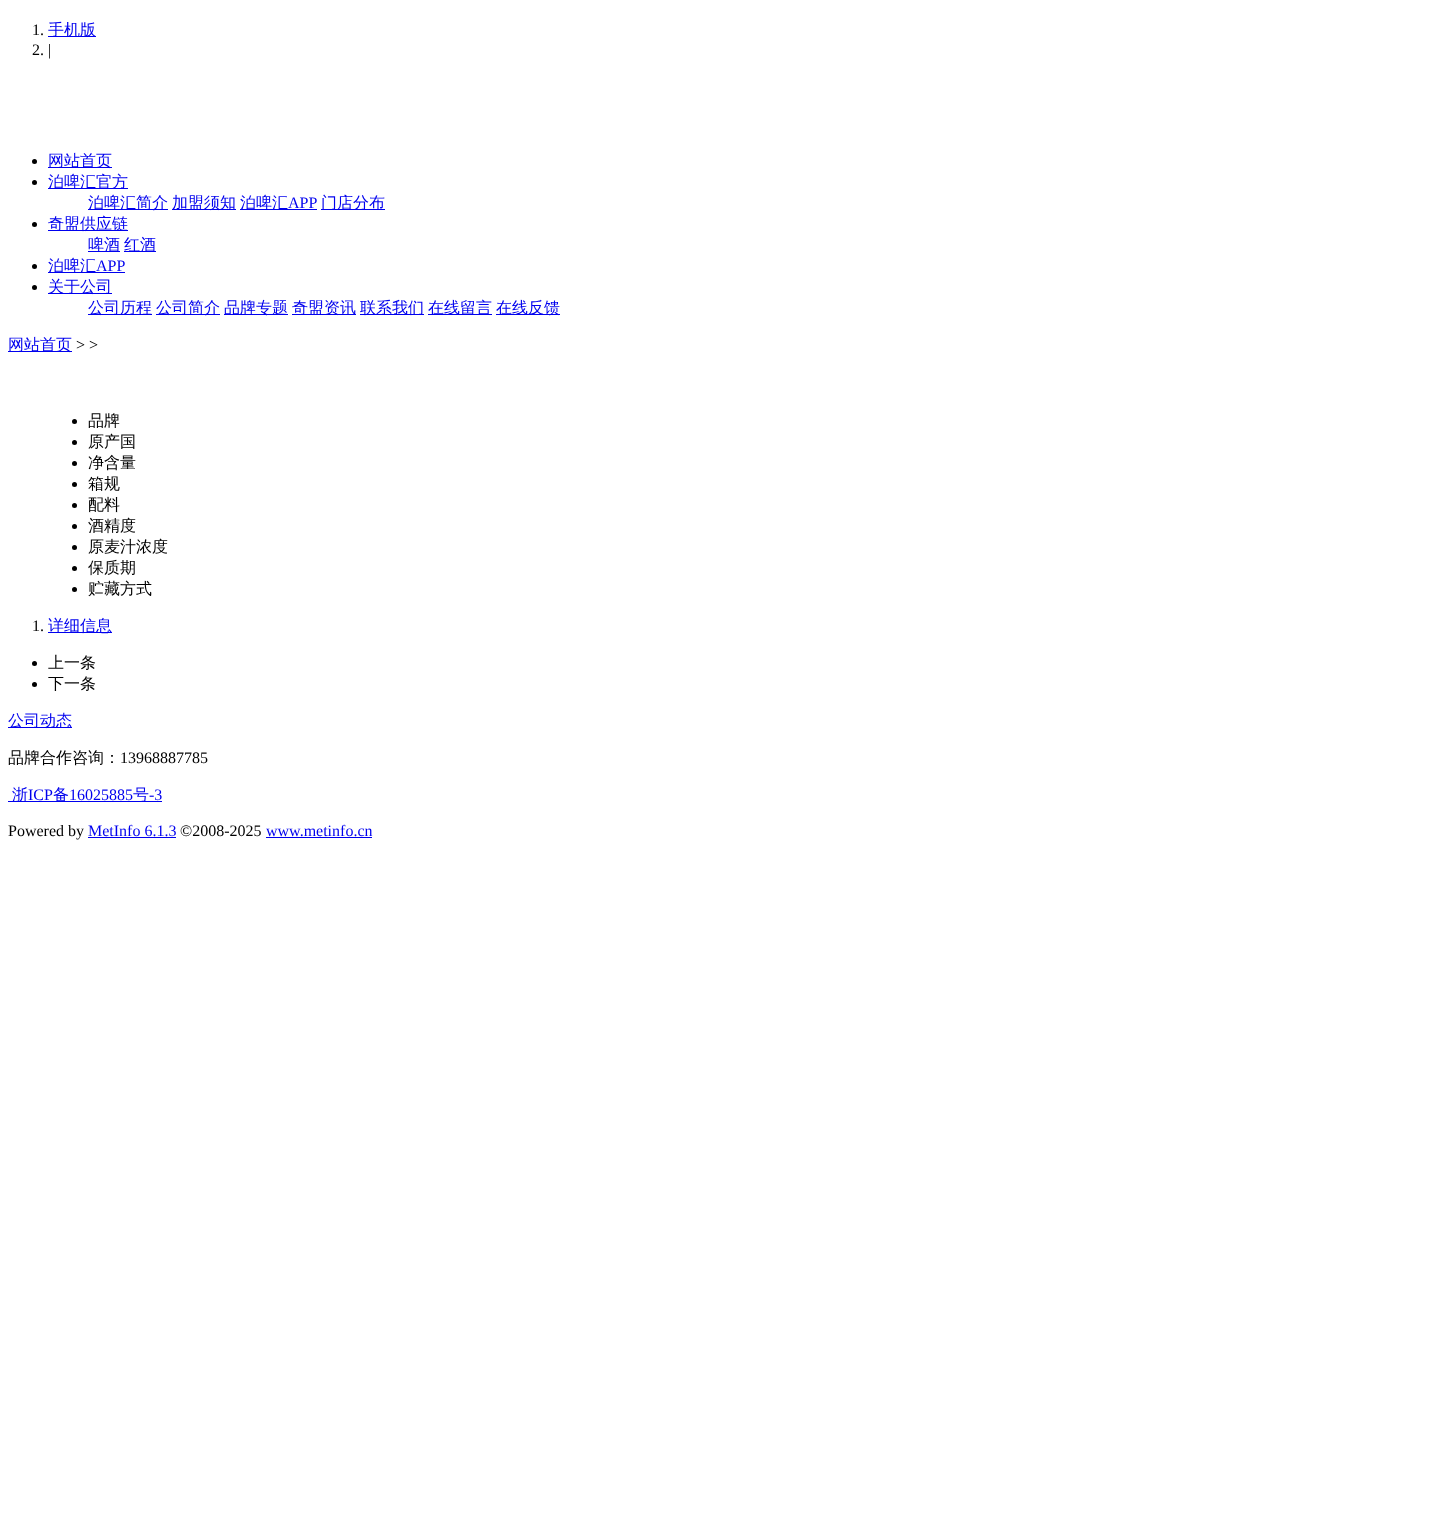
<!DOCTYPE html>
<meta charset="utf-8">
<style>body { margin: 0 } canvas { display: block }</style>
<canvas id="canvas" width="1432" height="1529"></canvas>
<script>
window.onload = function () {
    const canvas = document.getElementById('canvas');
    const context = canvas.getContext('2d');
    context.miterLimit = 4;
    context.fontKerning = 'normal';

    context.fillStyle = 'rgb(255, 255, 255)';
    context.fillRect(0, 0, 1432, 1529);
    context.fillStyle = 'rgb(0, 0, 238)';
    context.fillRect(48, 36, 48, 1);
    context.fillStyle = 'rgb(0, 0, 0)';
    context.beginPath();
    context.arc(34.5, 161.5, 2.5, 0, 2 * Math.PI);
    context.fill();
    context.fillStyle = 'rgb(0, 0, 238)';
    context.fillRect(48, 167, 64, 1);
    context.fillStyle = 'rgb(0, 0, 0)';
    context.beginPath();
    context.arc(34.5, 182.5, 2.5, 0, 2 * Math.PI);
    context.fill();
    context.fillStyle = 'rgb(0, 0, 238)';
    context.fillRect(48, 188, 80, 1);
    context.fillRect(88, 209, 80, 1);
    context.fillRect(172, 209, 64, 1);
    context.fillRect(240, 209, 77, 1);
    context.fillRect(321, 209, 64, 1);
    context.fillStyle = 'rgb(0, 0, 0)';
    context.beginPath();
    context.arc(34.5, 224.5, 2.5, 0, 2 * Math.PI);
    context.fill();
    context.fillStyle = 'rgb(0, 0, 238)';
    context.fillRect(48, 230, 80, 1);
    context.fillRect(88, 251, 32, 1);
    context.fillRect(124, 251, 32, 1);
    context.fillStyle = 'rgb(0, 0, 0)';
    context.beginPath();
    context.arc(34.5, 266.5, 2.5, 0, 2 * Math.PI);
    context.fill();
    context.fillStyle = 'rgb(0, 0, 238)';
    context.fillRect(48, 272, 77, 1);
    context.fillStyle = 'rgb(0, 0, 0)';
    context.beginPath();
    context.arc(34.5, 287.5, 2.5, 0, 2 * Math.PI);
    context.fill();
    context.fillStyle = 'rgb(0, 0, 238)';
    context.fillRect(48, 293, 64, 1);
    context.fillRect(88, 314, 64, 1);
    context.fillRect(156, 314, 64, 1);
    context.fillRect(224, 314, 64, 1);
    context.fillRect(292, 314, 64, 1);
    context.fillRect(360, 314, 64, 1);
    context.fillRect(428, 314, 64, 1);
    context.fillRect(496, 314, 64, 1);
    context.fillRect(8, 351, 64, 1);
    context.fillStyle = 'rgb(0, 0, 0)';
    context.beginPath();
    context.arc(74.5, 421.5, 2.5, 0, 2 * Math.PI);
    context.fill();
    context.beginPath();
    context.arc(74.5, 442.5, 2.5, 0, 2 * Math.PI);
    context.fill();
    context.beginPath();
    context.arc(74.5, 463.5, 2.5, 0, 2 * Math.PI);
    context.fill();
    context.beginPath();
    context.arc(74.5, 484.5, 2.5, 0, 2 * Math.PI);
    context.fill();
    context.beginPath();
    context.arc(74.5, 505.5, 2.5, 0, 2 * Math.PI);
    context.fill();
    context.beginPath();
    context.arc(74.5, 526.5, 2.5, 0, 2 * Math.PI);
    context.fill();
    context.beginPath();
    context.arc(74.5, 547.5, 2.5, 0, 2 * Math.PI);
    context.fill();
    context.beginPath();
    context.arc(74.5, 568.5, 2.5, 0, 2 * Math.PI);
    context.fill();
    context.beginPath();
    context.arc(74.5, 589.5, 2.5, 0, 2 * Math.PI);
    context.fill();
    context.fillStyle = 'rgb(0, 0, 238)';
    context.fillRect(48, 632, 64, 1);
    context.fillStyle = 'rgb(0, 0, 0)';
    context.beginPath();
    context.arc(34.5, 663.5, 2.5, 0, 2 * Math.PI);
    context.fill();
    context.beginPath();
    context.arc(34.5, 684.5, 2.5, 0, 2 * Math.PI);
    context.fill();
    context.fillStyle = 'rgb(0, 0, 238)';
    context.fillRect(8, 727, 64, 1);
    context.fillRect(8, 801, 154, 1);
    context.fillRect(88, 837, 88, 1);
    context.fillRect(266, 837, 106, 1);
    context.font = '16px Liberation Serif';
    context.fillStyle = 'rgb(0, 0, 0)';
    context.fillText('1.', 32, 35);
    context.font = '500 16px WenQuanYi Zen Hei';
    context.fillStyle = 'rgb(0, 0, 238)';
    context.fillText('手机版', 48, 35);
    context.font = '16px Liberation Serif';
    context.fillStyle = 'rgb(0, 0, 0)';
    context.fillText('2. |', 32, 55);
    context.font = '500 16px WenQuanYi Zen Hei';
    context.fillStyle = 'rgb(0, 0, 238)';
    context.fillText('网站首页', 48, 166);
    context.fillText('泊啤汇官方', 48, 187);
    context.fillText('泊啤汇简介', 88, 208);
    context.fillText('加盟须知', 172, 208);
    context.fillText('泊啤汇', 240, 208);
    context.font = '16px Liberation Serif';
    context.fillText('APP', 288, 208);
    context.font = '500 16px WenQuanYi Zen Hei';
    context.fillText('门店分布', 321, 208);
    context.fillText('奇盟供应链', 48, 229);
    context.fillText('啤酒', 88, 250);
    context.fillText('红酒', 124, 250);
    context.fillText('泊啤汇', 48, 271);
    context.font = '16px Liberation Serif';
    context.fillText('APP', 96, 271);
    context.font = '500 16px WenQuanYi Zen Hei';
    context.fillText('关于公司', 48, 292);
    context.fillText('公司历程', 88, 313);
    context.fillText('公司简介', 156, 313);
    context.fillText('品牌专题', 224, 313);
    context.fillText('奇盟资讯', 292, 313);
    context.fillText('联系我们', 360, 313);
    context.fillText('在线留言', 428, 313);
    context.fillText('在线反馈', 496, 313);
    context.fillText('网站首页', 8, 350);
    context.font = '16px Liberation Serif';
    context.fillStyle = 'rgb(0, 0, 0)';
    context.fillText('> >', 76, 350);
    context.font = '500 16px WenQuanYi Zen Hei';
    context.fillText('品牌', 88, 426);
    context.fillText('原产国', 88, 447);
    context.fillText('净含量', 88, 468);
    context.fillText('箱规', 88, 489);
    context.fillText('配料', 88, 510);
    context.fillText('酒精度', 88, 531);
    context.fillText('原麦汁浓度', 88, 552);
    context.fillText('保质期', 88, 573);
    context.fillText('贮藏方式', 88, 594);
    context.font = '16px Liberation Serif';
    context.fillText('1.', 32, 631);
    context.font = '500 16px WenQuanYi Zen Hei';
    context.fillStyle = 'rgb(0, 0, 238)';
    context.fillText('详细信息', 48, 631);
    context.fillStyle = 'rgb(0, 0, 0)';
    context.fillText('上一条', 48, 668);
    context.fillText('下一条', 48, 689);
    context.fillStyle = 'rgb(0, 0, 238)';
    context.fillText('公司动态', 8, 726);
    context.fillStyle = 'rgb(0, 0, 0)';
    context.fillText('品牌合作咨询：', 8, 763);
    context.font = '16px Liberation Serif';
    context.fillText('13968887785', 120, 763);
    context.font = '500 16px WenQuanYi Zen Hei';
    context.fillStyle = 'rgb(0, 0, 238)';
    context.fillText('浙', 12, 800);
    context.font = '16px Liberation Serif';
    context.fillText('ICP', 28, 800);
    context.font = '500 16px WenQuanYi Zen Hei';
    context.fillText('备', 53, 800);
    context.font = '16px Liberation Serif';
    context.fillText('16025885', 69, 800);
    context.font = '500 16px WenQuanYi Zen Hei';
    context.fillText('号', 133, 800);
    context.font = '16px Liberation Serif';
    context.fillText('-3', 149, 800);
    context.fillStyle = 'rgb(0, 0, 0)';
    context.fillText('Powered by', 8, 836);
    context.fillStyle = 'rgb(0, 0, 238)';
    context.fillText('MetInfo 6.1.3', 88, 836);
    context.fillStyle = 'rgb(0, 0, 0)';
    context.fillText('©2008-2025', 180, 836);
    context.fillStyle = 'rgb(0, 0, 238)';
    context.fillText('www.metinfo.cn', 266, 836);
};
</script>
